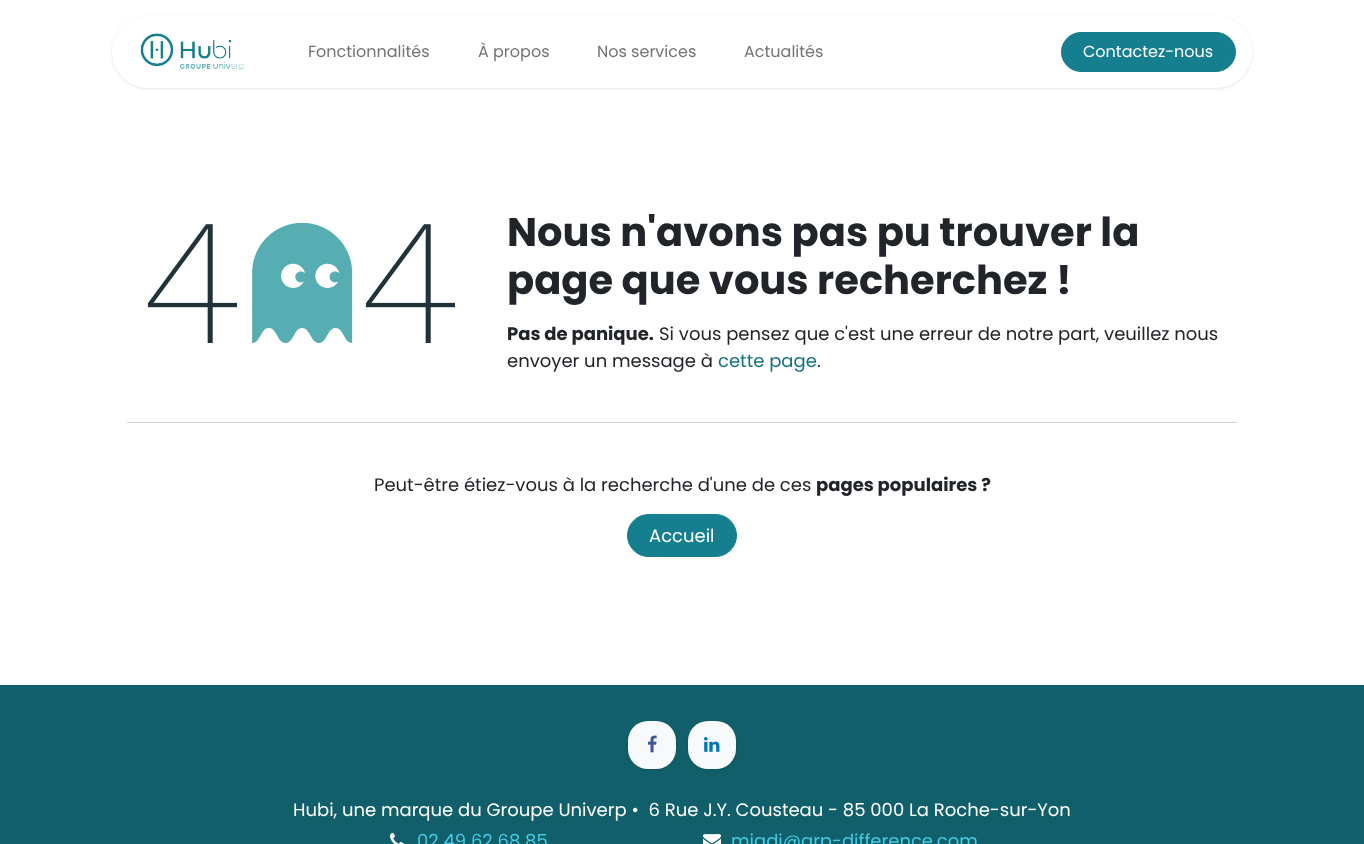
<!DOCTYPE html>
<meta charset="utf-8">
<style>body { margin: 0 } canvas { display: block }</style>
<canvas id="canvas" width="1364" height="844"></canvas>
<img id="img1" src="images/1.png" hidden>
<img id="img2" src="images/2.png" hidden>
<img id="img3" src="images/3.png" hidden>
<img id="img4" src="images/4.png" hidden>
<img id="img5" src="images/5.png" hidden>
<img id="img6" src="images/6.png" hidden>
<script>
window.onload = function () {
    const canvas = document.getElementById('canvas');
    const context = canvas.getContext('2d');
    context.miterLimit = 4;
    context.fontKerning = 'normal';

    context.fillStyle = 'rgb(255, 255, 255)';
    context.fillRect(0, 0, 1364, 844);
    context.fillStyle = 'rgba(0, 0, 0, 0.1)';
    context.filter = 'blur(1.5px)';
    context.beginPath();
    context.roundRect(112, 17, 1140, 72, 36);
    context.fill();
    context.filter = 'none';
    context.fillStyle = 'rgb(255, 255, 255)';
    context.beginPath();
    context.roundRect(112, 16, 1140, 72, 36);
    context.fill();
    context.drawImage(document.getElementById('img1'), 140, 33, 104, 38);
    context.fillStyle = 'rgb(22, 127, 143)';
    context.beginPath();
    context.roundRect(1061.5, 32.5, 174, 39, 19.5);
    context.fill();
    context.strokeStyle = 'rgb(22, 127, 143)';
    context.stroke();
    context.drawImage(document.getElementById('img2'), 147, 223, 308, 120);
    context.fillStyle = 'rgb(206, 212, 218)';
    context.fillRect(127, 422, 1110, 1);
    context.fillStyle = 'rgb(22, 127, 143)';
    context.beginPath();
    context.roundRect(627.5, 514.5, 109, 42, 21);
    context.fill();
    context.stroke();
    context.fillStyle = 'rgb(17, 95, 107)';
    context.fillRect(0, 685, 1364, 159);
    context.fillStyle = 'rgba(0, 0, 0, 0.1)';
    context.filter = 'blur(1.5px)';
    context.beginPath();
    context.roundRect(628, 722, 48, 48, 20);
    context.fill();
    context.filter = 'none';
    context.fillStyle = 'rgb(248, 249, 250)';
    context.beginPath();
    context.roundRect(628, 721, 48, 48, 20);
    context.fill();
    context.drawImage(document.getElementById('img3'), 647, 735, 10, 18);
    context.fillStyle = 'rgba(0, 0, 0, 0.1)';
    context.filter = 'blur(1.5px)';
    context.beginPath();
    context.roundRect(688, 722, 48, 48, 20);
    context.fill();
    context.filter = 'none';
    context.fillStyle = 'rgb(248, 249, 250)';
    context.beginPath();
    context.roundRect(688, 721, 48, 48, 20);
    context.fill();
    context.drawImage(document.getElementById('img4'), 704, 737, 16, 15);
    context.drawImage(document.getElementById('img5'), 390, 832, 15, 12);
    context.drawImage(document.getElementById('img6'), 703, 834, 18, 10);
    context.font = '16px Poppins';
    context.fillStyle = 'rgb(115, 115, 115)';
    context.fillText('Fonctionnalités', 308, 57);
    context.fillText('À propos', 478, 57);
    context.fillText('Nos services', 597, 57);
    context.fillText('Actualités', 744, 57);
    context.fillStyle = 'rgb(255, 255, 255)';
    context.fillText('Contactez-nous', 1083, 57);
    context.font = 'bold 40px Poppins';
    context.fillStyle = 'rgb(33, 37, 41)';
    context.fillText('Nous n\'avons pas pu trouver la', 507, 246);
    context.fillText('page que vous recherchez !', 507, 294);
    context.font = 'bold 18px Poppins';
    context.fillText('Pas de panique.', 507, 340);
    context.font = '18px Poppins';
    context.fillText('Si vous pensez que c\'est une erreur de notre part, veuillez nous', 659, 340);
    context.fillText('envoyer un message à', 507, 367);
    context.fillStyle = 'rgb(20, 115, 130)';
    context.fillText('cette page', 718, 367);
    context.fillStyle = 'rgb(33, 37, 41)';
    context.fillText('.', 817, 367);
    context.fillText('Peut-être étiez-vous à la recherche d\'une de ces', 374, 491);
    context.font = 'bold 18px Poppins';
    context.fillText('pages populaires ?', 816, 491);
    context.font = '18px Poppins';
    context.fillStyle = 'rgb(255, 255, 255)';
    context.fillText('Accueil', 649, 542);
    context.fillText('Hubi, une marque du Groupe Univerp •  6 Rue J.Y. Cousteau - 85 000 La Roche-sur-Yon', 293, 816);
    context.fillStyle = 'rgb(67, 205, 226)';
    context.fillText('02 49 62 68 85', 417, 847);
    context.fillText('miadi@grp-difference.com', 731, 847);
};
</script>
